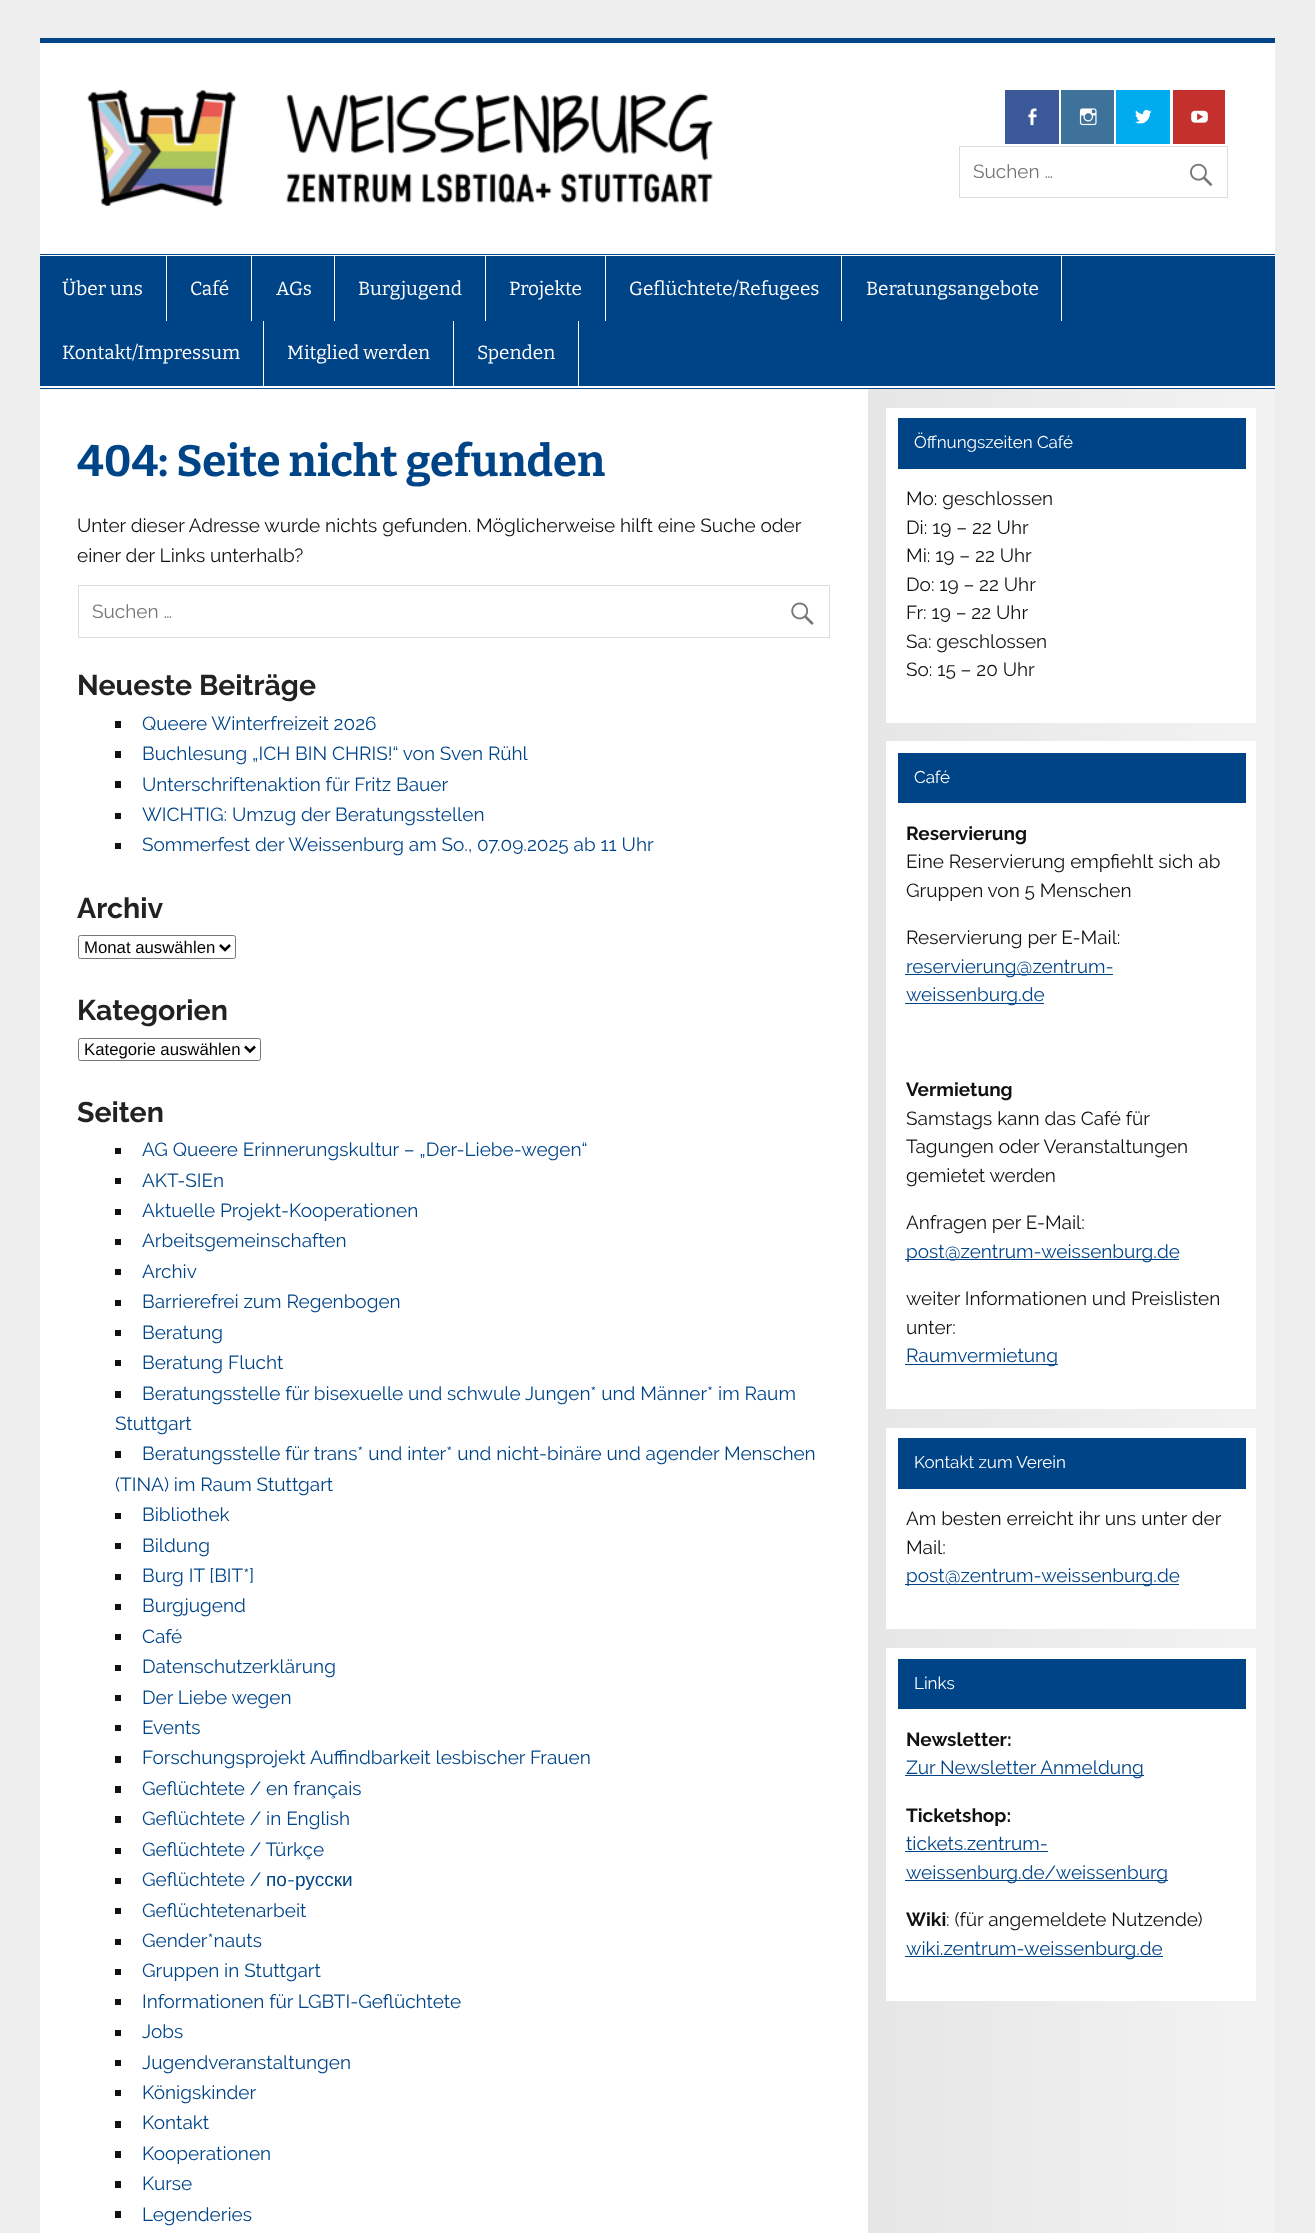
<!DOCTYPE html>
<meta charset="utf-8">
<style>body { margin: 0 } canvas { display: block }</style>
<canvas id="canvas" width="1315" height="2233"></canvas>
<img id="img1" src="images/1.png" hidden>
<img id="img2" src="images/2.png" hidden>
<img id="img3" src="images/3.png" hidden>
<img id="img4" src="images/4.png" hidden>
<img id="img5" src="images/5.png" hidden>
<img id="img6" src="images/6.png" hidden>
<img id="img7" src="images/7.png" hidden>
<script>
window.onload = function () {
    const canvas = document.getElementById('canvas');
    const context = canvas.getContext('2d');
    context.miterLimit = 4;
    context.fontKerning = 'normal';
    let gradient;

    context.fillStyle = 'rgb(238, 238, 238)';
    context.fillRect(0, 0, 1315, 2233);
    context.fillStyle = 'rgb(255, 255, 255)';
    context.fillRect(40, 43, 1235, 2190);
    context.fillStyle = 'rgb(0, 68, 136)';
    context.fillRect(40, 38, 1235, 5);
    context.drawImage(document.getElementById('img1'), 87, 90, 626, 117);
    context.fillStyle = 'rgb(59, 89, 152)';
    context.fillRect(1005, 90, 54, 54);
    context.drawImage(document.getElementById('img2'), 1028, 108, 9, 18);
    context.fillStyle = 'rgb(63, 114, 155)';
    context.fillRect(1061, 90, 53, 54);
    context.drawImage(document.getElementById('img3'), 1079, 108, 18, 18);
    context.fillStyle = 'rgb(0, 172, 237)';
    context.fillRect(1116, 90, 54, 54);
    context.drawImage(document.getElementById('img4'), 1135, 110, 17, 14);
    context.fillStyle = 'rgb(196, 48, 43)';
    context.fillRect(1173, 90, 52, 54);
    context.drawImage(document.getElementById('img5'), 1191, 110, 17, 13);
    context.strokeStyle = 'rgb(221, 221, 221)';
    context.strokeRect(959.5, 146.5, 268, 51);
    context.drawImage(document.getElementById('img6'), 1190, 163, 23, 24);
    context.fillStyle = 'rgb(0, 68, 136)';
    context.fillRect(40, 254, 1235, 1);
    context.fillRect(40, 388, 1235, 1);
    context.fillRect(40, 256, 1235, 130);
    context.fillStyle = 'rgb(255, 255, 255)';
    context.fillRect(166, 256, 1, 65);
    context.fillRect(251, 256, 1, 65);
    context.fillRect(334, 256, 1, 65);
    context.fillRect(485, 256, 1, 65);
    context.fillRect(605, 256, 1, 65);
    context.fillRect(841, 256, 1, 65);
    context.fillRect(1061, 256, 1, 65);
    context.fillRect(263, 321, 1, 65);
    context.fillRect(453, 321, 1, 65);
    context.fillRect(578, 321, 1, 65);
    context.strokeRect(78.5, 585.5, 751, 52);
    context.drawImage(document.getElementById('img7'), 791, 602, 23, 23);
    context.fillStyle = 'rgb(17, 17, 17)';
    context.fillRect(115, 721, 6, 7);
    context.fillRect(115, 751, 6, 7);
    context.fillRect(115, 781, 6, 7);
    context.fillRect(115, 813, 6, 6);
    context.fillRect(115, 843, 6, 6);
    context.beginPath();
    context.roundRect(78.5, 935.5, 157, 23, 2);
    context.strokeStyle = 'rgb(118, 118, 118)';
    context.stroke();
    context.beginPath();
    context.moveTo(220, 945);
    context.lineTo(225, 950);
    context.lineTo(230, 945);
    context.strokeStyle = 'rgb(0, 0, 0)';
    context.lineWidth = 2.5;
    context.stroke();
    context.beginPath();
    context.roundRect(78.5, 1038.5, 182, 22, 2);
    context.strokeStyle = 'rgb(118, 118, 118)';
    context.lineWidth = 1;
    context.stroke();
    context.beginPath();
    context.moveTo(245, 1046.5);
    context.lineTo(250, 1051.5);
    context.lineTo(255, 1046.5);
    context.strokeStyle = 'rgb(0, 0, 0)';
    context.lineWidth = 2.5;
    context.stroke();
    context.fillRect(115, 1148, 6, 6);
    context.fillRect(115, 1178, 6, 6);
    context.fillRect(115, 1209, 6, 6);
    context.fillRect(115, 1239, 6, 6);
    context.fillRect(115, 1269, 6, 6);
    context.fillRect(115, 1300, 6, 6);
    context.fillRect(115, 1330, 6, 6);
    context.fillRect(115, 1360, 6, 6);
    context.fillRect(115, 1391, 6, 7);
    context.fillRect(115, 1451, 6, 7);
    context.fillRect(115, 1513, 6, 6);
    context.fillRect(115, 1543, 6, 6);
    context.fillRect(115, 1574, 6, 6);
    context.fillRect(115, 1604, 6, 6);
    context.fillRect(115, 1634, 6, 6);
    context.fillRect(115, 1665, 6, 6);
    context.fillRect(115, 1695, 6, 6);
    context.fillRect(115, 1725, 6, 6);
    context.fillRect(115, 1756, 6, 7);
    context.fillRect(115, 1786, 6, 7);
    context.fillRect(115, 1816, 6, 7);
    context.fillRect(115, 1848, 6, 6);
    context.fillRect(115, 1878, 6, 6);
    context.fillRect(115, 1908, 6, 6);
    context.fillRect(115, 1939, 6, 6);
    context.fillRect(115, 1969, 6, 6);
    context.fillRect(115, 1999, 6, 6);
    context.fillRect(115, 2030, 6, 6);
    context.fillRect(115, 2060, 6, 6);
    context.fillRect(115, 2090, 6, 6);
    context.fillRect(115, 2121, 6, 7);
    context.fillRect(115, 2151, 6, 7);
    context.fillRect(115, 2181, 6, 7);
    context.fillRect(115, 2211, 6, 7);
    gradient = context.createLinearGradient(868, 1723, 1275, 1723);
    gradient.addColorStop(0, 'rgb(230, 230, 230)');
    gradient.addColorStop(1, 'rgb(243, 243, 243)');
    context.fillStyle = gradient;
    context.fillRect(868, 389, 407, 1844);
    context.fillStyle = 'rgb(255, 255, 255)';
    context.fillRect(886, 408, 370, 315);
    context.fillStyle = 'rgb(0, 68, 136)';
    context.fillRect(898, 418, 348, 51);
    context.fillStyle = 'rgb(255, 255, 255)';
    context.fillRect(886, 741, 370, 668);
    context.fillStyle = 'rgb(0, 68, 136)';
    context.fillRect(898, 753, 348, 50);
    context.fillRect(905, 974, 208, 1);
    context.fillRect(905, 1003, 139, 1);
    context.fillRect(905, 1259, 274, 1);
    context.fillRect(905, 1364, 153, 1);
    context.fillStyle = 'rgb(255, 255, 255)';
    context.fillRect(886, 1428, 370, 201);
    context.fillStyle = 'rgb(0, 68, 136)';
    context.fillRect(898, 1438, 348, 51);
    context.fillRect(905, 1584, 274, 1);
    context.fillStyle = 'rgb(255, 255, 255)';
    context.fillRect(886, 1648, 370, 353);
    context.fillStyle = 'rgb(0, 68, 136)';
    context.fillRect(898, 1659, 348, 50);
    context.fillRect(905, 1775, 239, 1);
    context.fillRect(905, 1851, 143, 1);
    context.fillRect(905, 1880, 263, 1);
    context.fillRect(905, 1956, 258, 1);
    context.font = '19px Raleway';
    context.fillStyle = 'rgb(117, 117, 117)';
    context.fillText('Suchen …', 973, 178);
    context.font = '19px Bitter';
    context.fillStyle = 'rgb(255, 255, 255)';
    context.fillText('Über uns', 62, 295);
    context.fillText('Café', 190, 295);
    context.fillText('AGs', 276, 295);
    context.fillText('Burgjugend', 358, 295);
    context.fillText('Projekte', 509, 295);
    context.fillText('Geflüchtete/Refugees', 629, 295);
    context.fillText('Beratungsangebote', 866, 295);
    context.fillText('Kontakt/Impressum', 62, 359);
    context.fillText('Mitglied werden', 287, 359);
    context.fillText('Spenden', 477, 359);
    context.font = 'bold 43.75px Bitter';
    context.fillStyle = 'rgb(0, 68, 136)';
    context.fillText('404: Seite nicht gefunden', 77, 476);
    context.font = '19px Raleway';
    context.fillStyle = 'rgb(17, 17, 17)';
    context.fillText('Unter dieser Adresse wurde nichts gefunden. Möglicherweise hilft eine Suche oder', 77, 532);
    context.fillText('einer der Links unterhalb?', 77, 562);
    context.fillStyle = 'rgb(117, 117, 117)';
    context.fillText('Suchen …', 92, 618);
    context.font = 'bold 28.5px Raleway';
    context.fillStyle = 'rgb(34, 34, 34)';
    context.fillText('Neueste Beiträge', 77, 695);
    context.font = '19px Raleway';
    context.fillStyle = 'rgb(0, 68, 136)';
    context.fillText('Queere Winterfreizeit 2026', 142, 730);
    context.fillText('Buchlesung „ICH BIN CHRIS!“ von Sven Rühl', 142, 760);
    context.fillText('Unterschriftenaktion für Fritz Bauer', 142, 791);
    context.fillText('WICHTIG: Umzug der Beratungsstellen', 142, 821);
    context.fillText('Sommerfest der Weissenburg am So., 07.09.2025 ab 11 Uhr', 142, 851);
    context.font = 'bold 28.5px Raleway';
    context.fillStyle = 'rgb(34, 34, 34)';
    context.fillText('Archiv', 77, 918);
    context.font = '16.75px Liberation Sans';
    context.fillStyle = 'rgb(0, 0, 0)';
    context.fillText('Monat auswählen', 84, 953);
    context.font = 'bold 28.5px Raleway';
    context.fillStyle = 'rgb(34, 34, 34)';
    context.fillText('Kategorien', 77, 1020);
    context.font = '16.75px Liberation Sans';
    context.fillStyle = 'rgb(0, 0, 0)';
    context.fillText('Kategorie auswählen', 84, 1055);
    context.font = 'bold 28.5px Raleway';
    context.fillStyle = 'rgb(34, 34, 34)';
    context.fillText('Seiten', 77, 1122);
    context.font = '19px Raleway';
    context.fillStyle = 'rgb(0, 68, 136)';
    context.fillText('AG Queere Erinnerungskultur – „Der-Liebe-wegen“', 142, 1156);
    context.fillText('AKT-SIEn', 142, 1187);
    context.fillText('Aktuelle Projekt-Kooperationen', 142, 1217);
    context.fillText('Arbeitsgemeinschaften', 142, 1247);
    context.fillText('Archiv', 142, 1278);
    context.fillText('Barrierefrei zum Regenbogen', 142, 1308);
    context.fillText('Beratung', 142, 1339);
    context.fillText('Beratung Flucht', 142, 1369);
    context.fillText('Beratungsstelle für bisexuelle und schwule Jungen* und Männer* im Raum', 142, 1400);
    context.fillText('Stuttgart', 115, 1430);
    context.fillText('Beratungsstelle für trans* und inter* und nicht-binäre und agender Menschen', 142, 1460);
    context.fillText('(TINA) im Raum Stuttgart', 115, 1491);
    context.fillText('Bibliothek', 142, 1521);
    context.fillText('Bildung', 142, 1552);
    context.fillText('Burg IT [BIT*]', 142, 1582);
    context.fillText('Burgjugend', 142, 1612);
    context.fillText('Café', 142, 1643);
    context.fillText('Datenschutzerklärung', 142, 1673);
    context.fillText('Der Liebe wegen', 142, 1704);
    context.fillText('Events', 142, 1734);
    context.fillText('Forschungsprojekt Auffindbarkeit lesbischer Frauen', 142, 1764);
    context.fillText('Geflüchtete / en français', 142, 1795);
    context.fillText('Geflüchtete / in English', 142, 1825);
    context.fillText('Geflüchtete / Türkçe', 142, 1856);
    context.fillText('Geflüchtete /', 142, 1886);
    context.font = '19px Liberation Sans';
    context.fillText('по', 266, 1886);
    context.font = '19px Raleway';
    context.fillText('-', 287, 1886);
    context.font = '19px Liberation Sans';
    context.fillText('русски', 295, 1886);
    context.font = '19px Raleway';
    context.fillText('Geflüchtetenarbeit', 142, 1917);
    context.fillText('Gender*nauts', 142, 1947);
    context.fillText('Gruppen in Stuttgart', 142, 1977);
    context.fillText('Informationen für LGBTI-Geflüchtete', 142, 2008);
    context.fillText('Jobs', 142, 2038);
    context.fillText('Jugendveranstaltungen', 142, 2069);
    context.fillText('Königskinder', 142, 2099);
    context.fillText('Kontakt', 142, 2129);
    context.fillText('Kooperationen', 142, 2160);
    context.fillText('Kurse', 142, 2190);
    context.fillText('Legenderies', 142, 2221);
    context.font = '17px Raleway';
    context.fillStyle = 'rgb(255, 255, 255)';
    context.fillText('Öffnungszeiten Café', 914, 448);
    context.font = '19px Raleway';
    context.fillStyle = 'rgb(17, 17, 17)';
    context.fillText('Mo: geschlossen', 906, 505);
    context.fillText('Di: 19 – 22 Uhr', 906, 534);
    context.fillText('Mi: 19 – 22 Uhr', 906, 562);
    context.fillText('Do: 19 – 22 Uhr', 906, 591);
    context.fillText('Fr: 19 – 22 Uhr', 906, 619);
    context.fillText('Sa: geschlossen', 906, 648);
    context.fillText('So: 15 – 20 Uhr', 906, 676);
    context.font = '17px Raleway';
    context.fillStyle = 'rgb(255, 255, 255)';
    context.fillText('Café', 914, 783);
    context.font = 'bold 19px Raleway';
    context.fillStyle = 'rgb(17, 17, 17)';
    context.fillText('Reservierung', 906, 840);
    context.font = '19px Raleway';
    context.fillText('Eine Reservierung empfiehlt sich ab', 906, 868);
    context.fillText('Gruppen von 5 Menschen', 906, 897);
    context.fillText('Reservierung per E-Mail:', 906, 944);
    context.fillStyle = 'rgb(0, 68, 136)';
    context.fillText('reservierung@zentrum-', 906, 973);
    context.fillText('weissenburg.de', 906, 1001);
    context.font = 'bold 19px Raleway';
    context.fillStyle = 'rgb(17, 17, 17)';
    context.fillText('Vermietung', 906, 1096);
    context.font = '19px Raleway';
    context.fillText('Samstags kann das Café für', 906, 1125);
    context.fillText('Tagungen oder Veranstaltungen', 906, 1153);
    context.fillText('gemietet werden', 906, 1182);
    context.fillText('Anfragen per E-Mail:', 906, 1229);
    context.fillStyle = 'rgb(0, 68, 136)';
    context.fillText('post@zentrum-weissenburg.de', 906, 1258);
    context.fillStyle = 'rgb(17, 17, 17)';
    context.fillText('weiter Informationen und Preislisten', 906, 1305);
    context.fillText('unter:', 906, 1334);
    context.fillStyle = 'rgb(0, 68, 136)';
    context.fillText('Raumvermietung', 906, 1362);
    context.font = '17px Raleway';
    context.fillStyle = 'rgb(255, 255, 255)';
    context.fillText('Kontakt zum Verein', 914, 1468);
    context.font = '19px Raleway';
    context.fillStyle = 'rgb(17, 17, 17)';
    context.fillText('Am besten erreicht ihr uns unter der', 906, 1525);
    context.fillText('Mail:', 906, 1554);
    context.fillStyle = 'rgb(0, 68, 136)';
    context.fillText('post@zentrum-weissenburg.de', 906, 1582);
    context.font = '17px Raleway';
    context.fillStyle = 'rgb(255, 255, 255)';
    context.fillText('Links', 914, 1689);
    context.font = 'bold 19px Raleway';
    context.fillStyle = 'rgb(17, 17, 17)';
    context.fillText('Newsletter:', 906, 1746);
    context.font = '19px Raleway';
    context.fillStyle = 'rgb(0, 68, 136)';
    context.fillText('Zur Newsletter Anmeldung', 906, 1774);
    context.font = 'bold 19px Raleway';
    context.fillStyle = 'rgb(17, 17, 17)';
    context.fillText('Ticketshop:', 906, 1822);
    context.font = '19px Raleway';
    context.fillStyle = 'rgb(0, 68, 136)';
    context.fillText('tickets.zentrum-', 906, 1850);
    context.fillText('weissenburg.de/weissenburg', 906, 1879);
    context.font = 'bold 19px Raleway';
    context.fillStyle = 'rgb(17, 17, 17)';
    context.fillText('Wiki', 906, 1926);
    context.font = '19px Raleway';
    context.fillText(': (für angemeldete Nutzende)', 946, 1926);
    context.fillStyle = 'rgb(0, 68, 136)';
    context.fillText('wiki.zentrum-weissenburg.de', 906, 1955);
};
</script>
